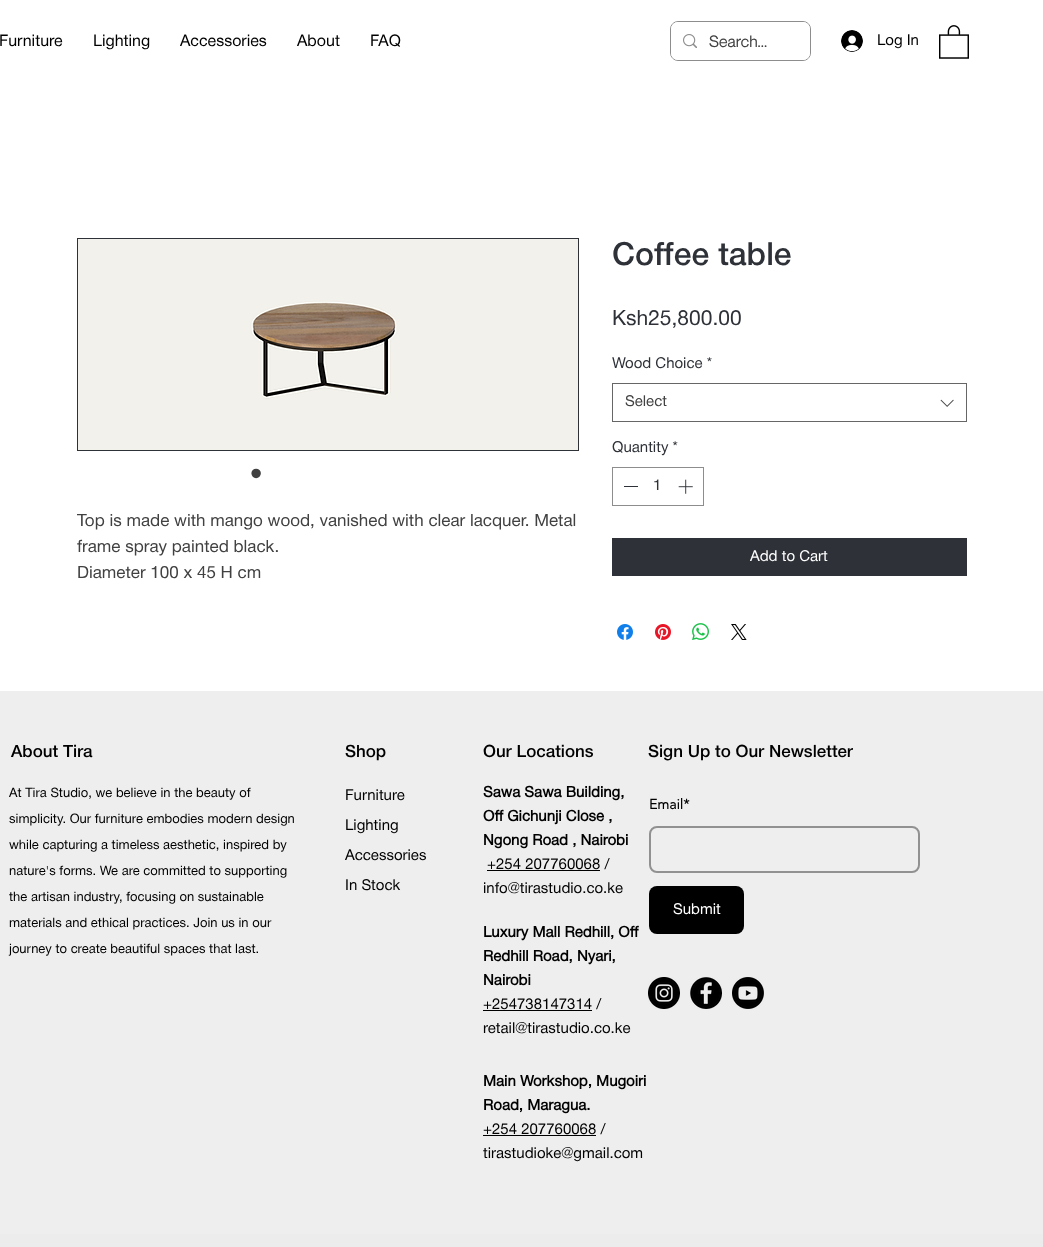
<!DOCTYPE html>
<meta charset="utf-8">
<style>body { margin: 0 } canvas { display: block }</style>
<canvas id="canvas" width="1043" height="1247"></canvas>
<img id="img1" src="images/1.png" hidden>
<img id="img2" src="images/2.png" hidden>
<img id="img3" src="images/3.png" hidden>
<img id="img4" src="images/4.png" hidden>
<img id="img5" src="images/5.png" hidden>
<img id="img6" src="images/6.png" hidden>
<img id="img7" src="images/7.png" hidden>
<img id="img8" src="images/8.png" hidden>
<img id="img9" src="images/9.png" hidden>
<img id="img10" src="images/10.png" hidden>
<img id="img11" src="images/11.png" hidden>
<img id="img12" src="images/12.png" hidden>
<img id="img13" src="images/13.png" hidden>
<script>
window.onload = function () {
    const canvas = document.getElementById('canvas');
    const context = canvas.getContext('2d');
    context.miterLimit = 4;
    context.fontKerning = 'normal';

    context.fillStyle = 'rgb(255, 255, 255)';
    context.fillRect(0, 0, 1043, 1247);
    context.beginPath();
    context.roundRect(670.5, 21.5, 140, 39, 7.5);
    context.strokeStyle = 'rgb(141, 141, 141)';
    context.stroke();
    context.beginPath();
    context.roundRect(671, 22, 139, 38, 7);
    context.fill();
    context.drawImage(document.getElementById('img1'), 683, 34, 14, 14);
    context.drawImage(document.getElementById('img2'), 841, 30, 22, 22);
    context.drawImage(document.getElementById('img3'), 939, 25, 30, 34);
    context.strokeStyle = 'rgb(46, 50, 56)';
    context.strokeRect(77.5, 238.5, 501, 212);
    context.drawImage(document.getElementById('img4'), 78, 239, 500, 211);
    context.strokeStyle = 'rgb(102, 102, 102)';
    context.strokeRect(612.5, 383.5, 354, 38);
    context.drawImage(document.getElementById('img5'), 940, 399, 14, 8);
    context.strokeStyle = 'rgb(141, 141, 141)';
    context.strokeRect(612.5, 467.5, 91, 38);
    context.fillStyle = 'rgb(46, 50, 56)';
    context.fillRect(624, 486, 14, 1);
    context.drawImage(document.getElementById('img6'), 678, 479, 15, 15);
    context.fillRect(612, 538, 355, 38);
    context.drawImage(document.getElementById('img7'), 617, 624, 16, 16);
    context.drawImage(document.getElementById('img8'), 655, 624, 16, 16);
    context.drawImage(document.getElementById('img9'), 692, 623, 17, 17);
    context.drawImage(document.getElementById('img10'), 731, 624, 16, 16);
    context.fillStyle = 'rgb(238, 238, 238)';
    context.fillRect(0, 691, 1043, 543);
    context.fillStyle = 'rgb(0, 0, 0)';
    context.fillRect(487, 870, 113, 1);
    context.fillRect(483, 1010, 109, 1);
    context.fillRect(483, 1135, 113, 1);
    context.beginPath();
    context.roundRect(650, 827, 269, 45, 7);
    context.strokeStyle = 'rgb(145, 145, 145)';
    context.lineWidth = 2;
    context.stroke();
    context.beginPath();
    context.roundRect(649, 886, 95, 48, 8);
    context.fill();
    context.drawImage(document.getElementById('img11'), 648, 977, 32, 32);
    context.drawImage(document.getElementById('img12'), 690, 977, 32, 32);
    context.drawImage(document.getElementById('img13'), 732, 977, 32, 32);
    context.fillStyle = 'rgb(236, 236, 236)';
    context.fillRect(0, 1234, 1043, 13);
    context.font = '16px Helvetica Neue';
    context.fillStyle = 'rgb(0, 0, 0)';
    context.fillText('Furniture', -1, 46);
    context.fillText('Lighting', 93, 46);
    context.fillText('Accessories', 180, 46);
    context.fillText('About', 297, 46);
    context.fillText('FAQ', 370, 46);
    context.font = '16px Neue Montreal';
    context.fillStyle = 'rgb(65, 65, 65)';
    context.fillText('Search...', 709, 47);
    context.font = '15px Helvetica Neue';
    context.fillStyle = 'rgb(0, 0, 0)';
    context.fillText('Log In', 877, 45);
    context.font = '35px Liberation Sans';
    context.fillStyle = 'rgb(65, 65, 65)';
    context.fillText('•', 250, 485);
    context.save();
    context.beginPath();
    context.rect(77, 509, 500, 78);
    context.clip();
    context.font = '17px Helvetica Neue';
    context.fillText('Top is made with mango wood, vanished with clear lacquer. Metal', 77, 526);
    context.restore();
    context.font = '17px Helvetica Neue';
    context.fillText('frame spray painted black.', 77, 552);
    context.fillText('Diameter 100 x 45 H cm', 77, 578);
    context.font = '500 32px Helvetica Neue';
    context.fillStyle = 'rgb(46, 50, 56)';
    context.fillText('Coffee table', 612, 265);
    context.font = '21px Helvetica Neue';
    context.fillText('Ksh25,800.00', 612, 325);
    context.font = '15px Helvetica Neue';
    context.fillText('Wood Choice *', 612, 368);
    context.fillStyle = 'rgb(65, 65, 65)';
    context.fillText('Select', 625, 406);
    context.fillStyle = 'rgb(46, 50, 56)';
    context.fillText('Quantity *', 612, 452);
    context.fillText('1', 653, 490);
    context.fillStyle = 'rgb(255, 255, 255)';
    context.fillText('Add to Cart', 750, 561);
    context.font = '500 17px Helvetica Neue';
    context.fillStyle = 'rgb(0, 0, 0)';
    context.fillText('About Tira', 11, 757);
    context.font = '13px Helvetica Neue';
    context.fillText('At Tira Studio, we believe in the beauty of', 9, 797);
    context.fillText('simplicity. Our furniture embodies modern design', 9, 823);
    context.fillText('while capturing a timeless aesthetic, inspired by', 9, 849);
    context.fillText('nature\'s forms. We are committed to supporting', 9, 875);
    context.fillText('the artisan industry, focusing on sustainable', 9, 901);
    context.fillText('materials and ethical practices. Join us in our', 9, 927);
    context.fillText('journey to create beautiful spaces that last.', 9, 953);
    context.font = '500 17px Helvetica Neue';
    context.fillText('Shop', 345, 757);
    context.font = '15px Helvetica Neue';
    context.fillText('Furniture', 345, 800);
    context.fillText('Lighting', 345, 830);
    context.fillText('Accessories', 345, 860);
    context.fillText('In Stock', 345, 890);
    context.font = '500 17px Helvetica Neue';
    context.fillText('Our Locations', 483, 757);
    context.font = 'bold 15px Helvetica Neue';
    context.fillText('Sawa Sawa Building,', 483, 797);
    context.fillText('Off Gichunji Close ,', 483, 821);
    context.fillText('Ngong Road , Nairobi', 483, 845);
    context.font = '15px Helvetica Neue';
    context.fillText('+254 207760068 /', 487, 869);
    context.fillText('info@tirastudio.co.ke', 483, 893);
    context.font = 'bold 15px Helvetica Neue';
    context.fillText('Luxury Mall Redhill, Off', 483, 937);
    context.fillText('Redhill Road, Nyari,', 483, 961);
    context.fillText('Nairobi', 483, 985);
    context.font = '15px Helvetica Neue';
    context.fillText('+254738147314 /', 483, 1009);
    context.fillText('retail@tirastudio.co.ke', 483, 1033);
    context.font = 'bold 15px Helvetica Neue';
    context.fillText('Main Workshop, Mugoiri', 483, 1086);
    context.fillText('Road, Maragua.', 483, 1110);
    context.font = '15px Helvetica Neue';
    context.fillText('+254 207760068 /', 483, 1134);
    context.fillText('tirastudioke@gmail.com', 483, 1158);
    context.font = '500 17px Helvetica Neue';
    context.fillText('Sign Up to Our Newsletter', 648, 757);
    context.font = 'bold 14px "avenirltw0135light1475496"';
    context.fillText('Email*', 649, 809);
    context.font = '15px Helvetica Neue';
    context.fillStyle = 'rgb(255, 255, 255)';
    context.fillText('Submit', 673, 914);
};
</script>
